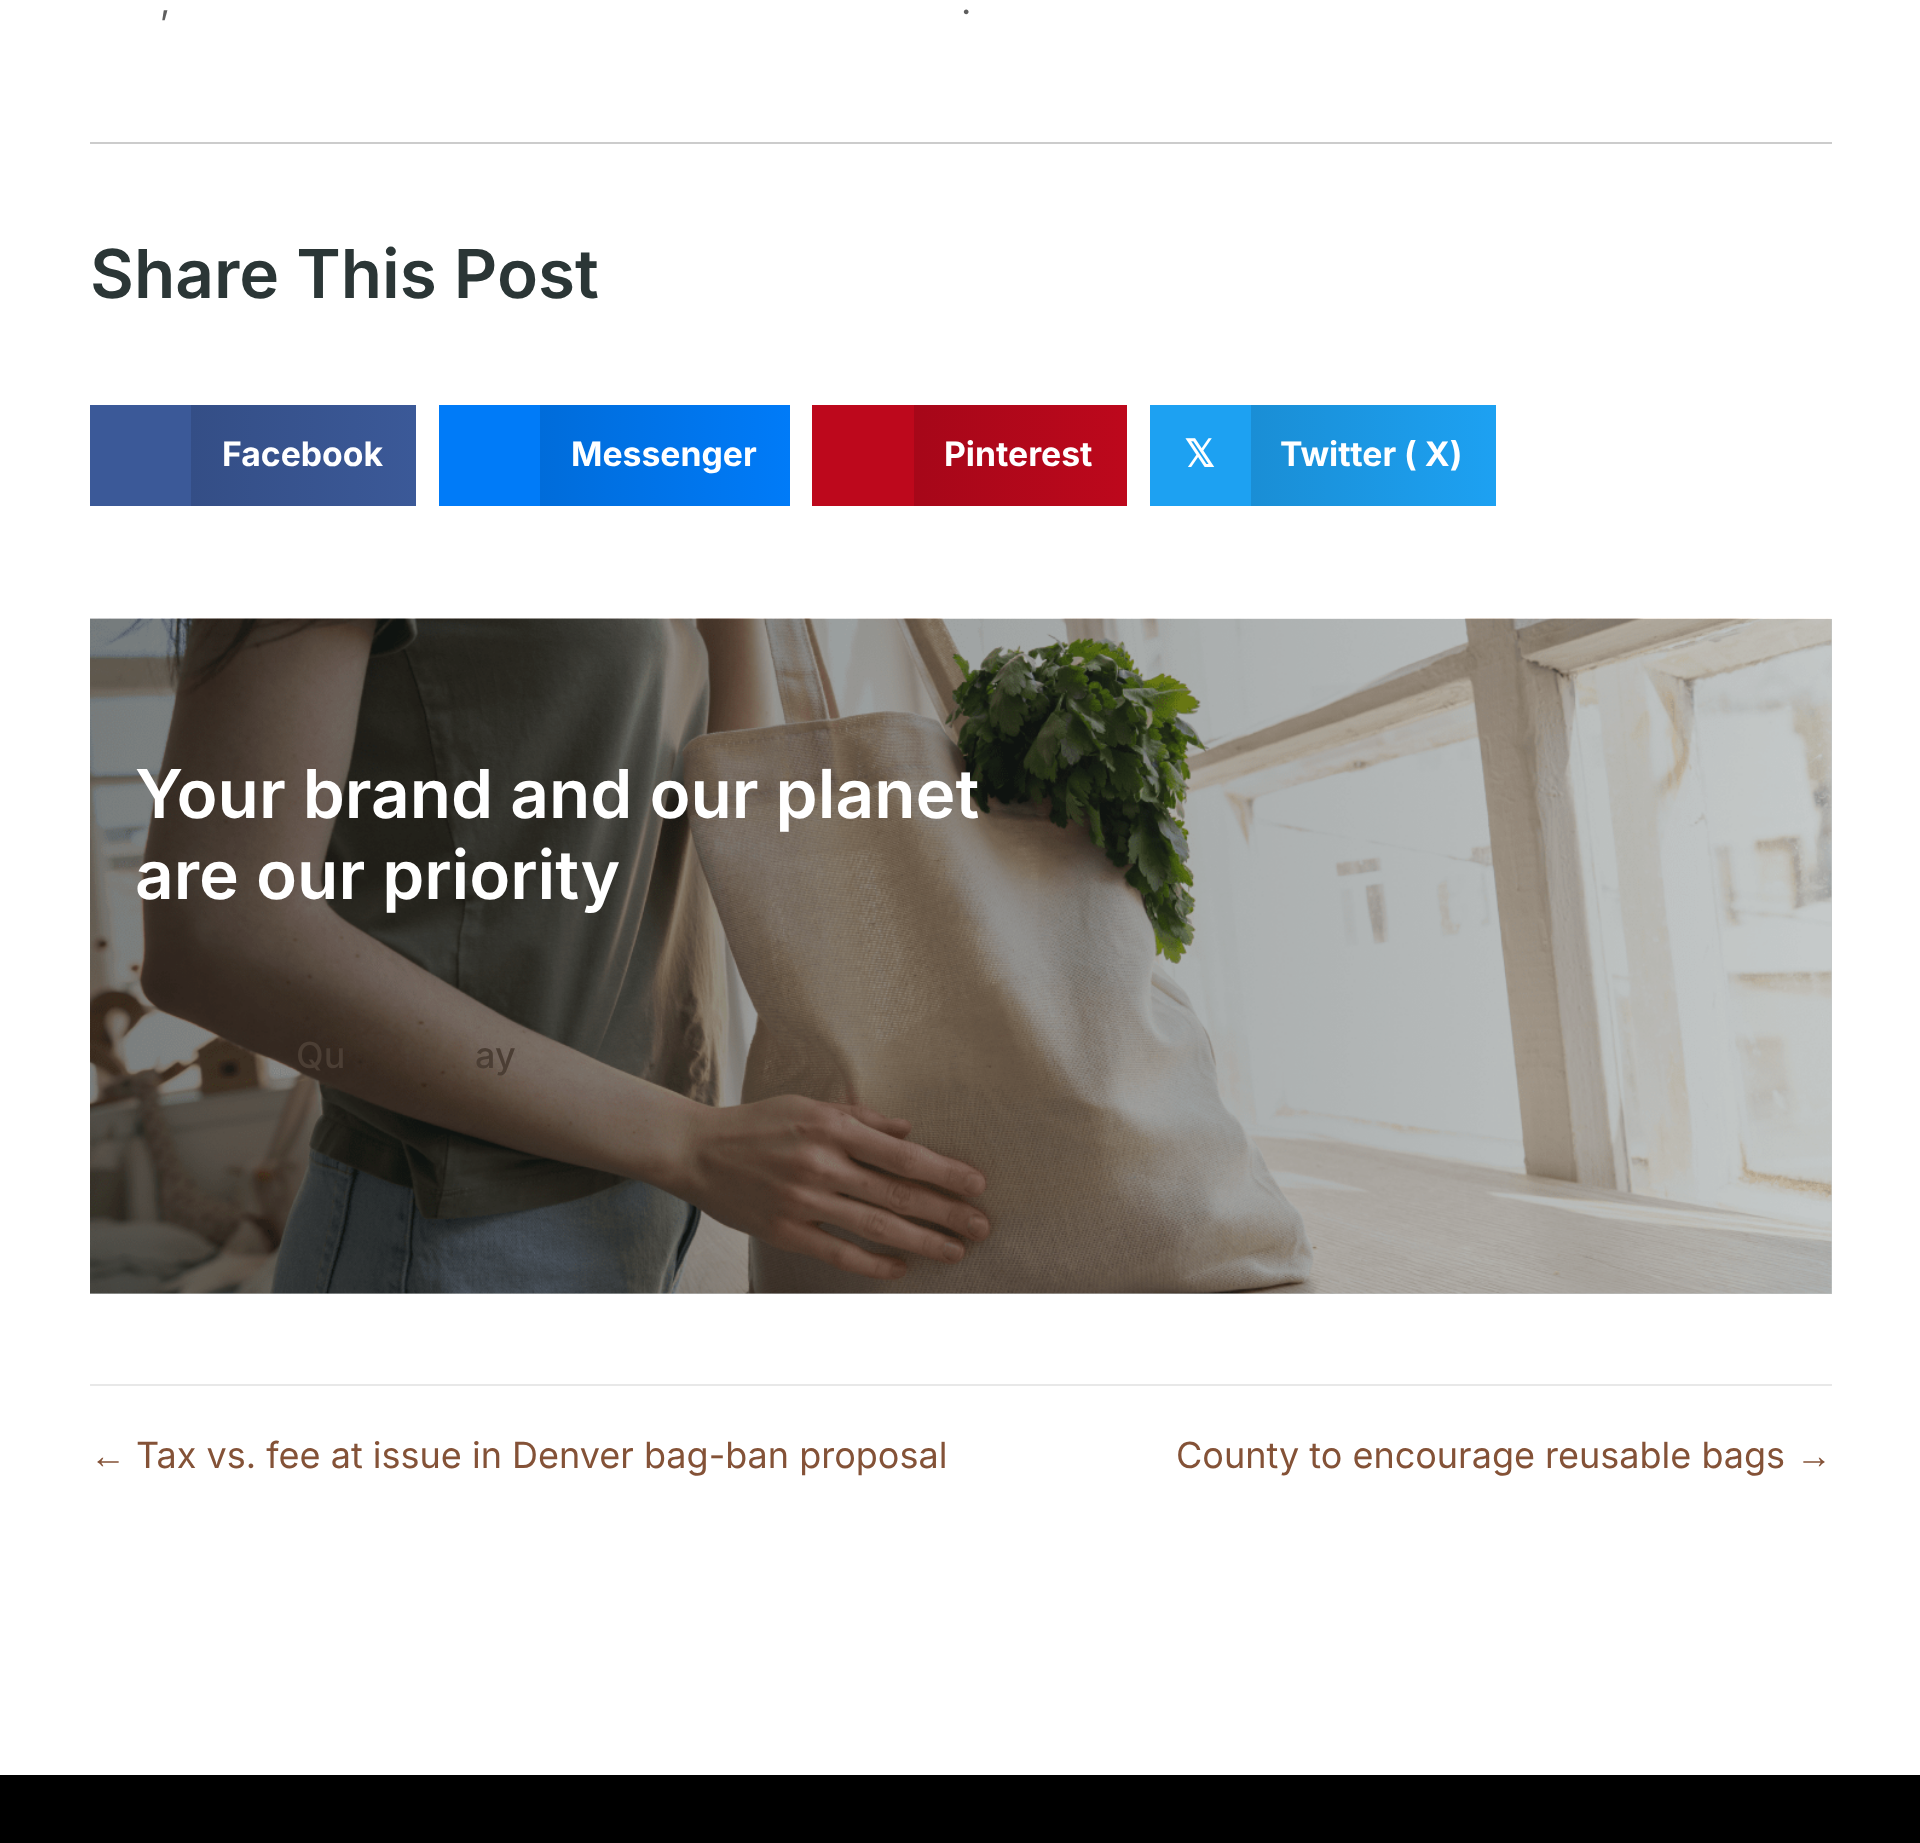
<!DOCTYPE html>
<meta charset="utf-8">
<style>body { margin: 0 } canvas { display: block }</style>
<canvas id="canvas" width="1920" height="1843"></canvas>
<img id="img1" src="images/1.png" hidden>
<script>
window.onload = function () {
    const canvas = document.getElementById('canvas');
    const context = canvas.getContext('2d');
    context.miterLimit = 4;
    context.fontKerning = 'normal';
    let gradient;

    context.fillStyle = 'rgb(255, 255, 255)';
    context.fillRect(0, 0, 1920, 1843);
    context.fillStyle = 'rgb(197, 201, 201)';
    context.fillRect(90, 619, 1742, 675);
    context.fillStyle = 'rgb(204, 204, 204)';
    context.fillRect(90, 142, 1742, 2);
    context.fillStyle = 'rgb(59, 89, 152)';
    context.fillRect(90, 405, 101, 101);
    gradient = context.createLinearGradient(191, 456, 416, 456);
    gradient.addColorStop(0, 'rgb(52, 78, 134)');
    gradient.addColorStop(1, 'rgb(59, 89, 152)');
    context.fillStyle = gradient;
    context.fillRect(191, 405, 225, 101);
    context.fillStyle = 'rgb(0, 123, 248)';
    context.fillRect(439, 405, 101, 101);
    gradient = context.createLinearGradient(540, 456, 790, 456);
    gradient.addColorStop(0, 'rgb(0, 108, 218)');
    gradient.addColorStop(1, 'rgb(0, 123, 248)');
    context.fillStyle = gradient;
    context.fillRect(540, 405, 250, 101);
    context.fillStyle = 'rgb(189, 8, 28)';
    context.fillRect(812, 405, 102, 101);
    gradient = context.createLinearGradient(914, 456, 1127, 456);
    gradient.addColorStop(0, 'rgb(166, 7, 25)');
    gradient.addColorStop(1, 'rgb(189, 8, 28)');
    context.fillStyle = gradient;
    context.fillRect(914, 405, 213, 101);
    context.fillStyle = 'rgb(29, 161, 242)';
    context.fillRect(1150, 405, 101, 101);
    gradient = context.createLinearGradient(1251, 456, 1496, 456);
    gradient.addColorStop(0, 'rgb(26, 142, 213)');
    gradient.addColorStop(1, 'rgb(29, 161, 242)');
    context.fillStyle = gradient;
    context.fillRect(1251, 405, 245, 101);
    context.drawImage(document.getElementById('img1'), 90, 618, 1742, 676);
    context.fillStyle = 'rgb(232, 232, 232)';
    context.fillRect(90, 1384, 1742, 2);
    context.fillStyle = 'rgb(0, 0, 0)';
    context.fillRect(0, 1775, 1920, 68);
    context.font = '36px Inter';
    context.fillStyle = 'rgb(94, 94, 94)';
    context.fillText(',', 160, 14);
    context.fillText('.', 961, 14);
    context.font = '600 67.5px Inter';
    context.fillStyle = 'rgb(43, 54, 54)';
    context.fillText('Share This Post', 90, 298);
    context.font = 'bold 33.75px Inter';
    context.fillStyle = 'rgb(255, 255, 255)';
    context.fillText('Facebook', 222, 466);
    context.fillText('Messenger', 571, 466);
    context.fillText('Pinterest', 944, 466);
    context.font = 'bold 38px DejaVu Sans';
    context.fillText('𝕏', 1184, 467);
    context.font = 'bold 33.75px Inter';
    context.fillText('Twitter ( X)', 1280, 466);
    context.font = '600 67.5px Inter';
    context.fillText('Your brand and our planet', 135, 818);
    context.fillText('are our priority', 135, 899);
    context.font = '500 36px Inter';
    context.fillStyle = 'rgb(75, 62, 52)';
    context.fillText('Qu', 296, 1068);
    context.fillText('ay', 475, 1068);
    context.font = '36px Liberation Sans';
    context.fillStyle = 'rgb(132, 82, 55)';
    context.fillText('←', 90, 1468);
    context.font = '36px Inter';
    context.fillText('Tax vs. fee at issue in Denver bag-ban proposal', 136, 1468);
    context.fillText('County to encourage reusable bags', 1176, 1468);
    context.font = '36px Liberation Sans';
    context.fillText('→', 1796, 1468);
};
</script>
